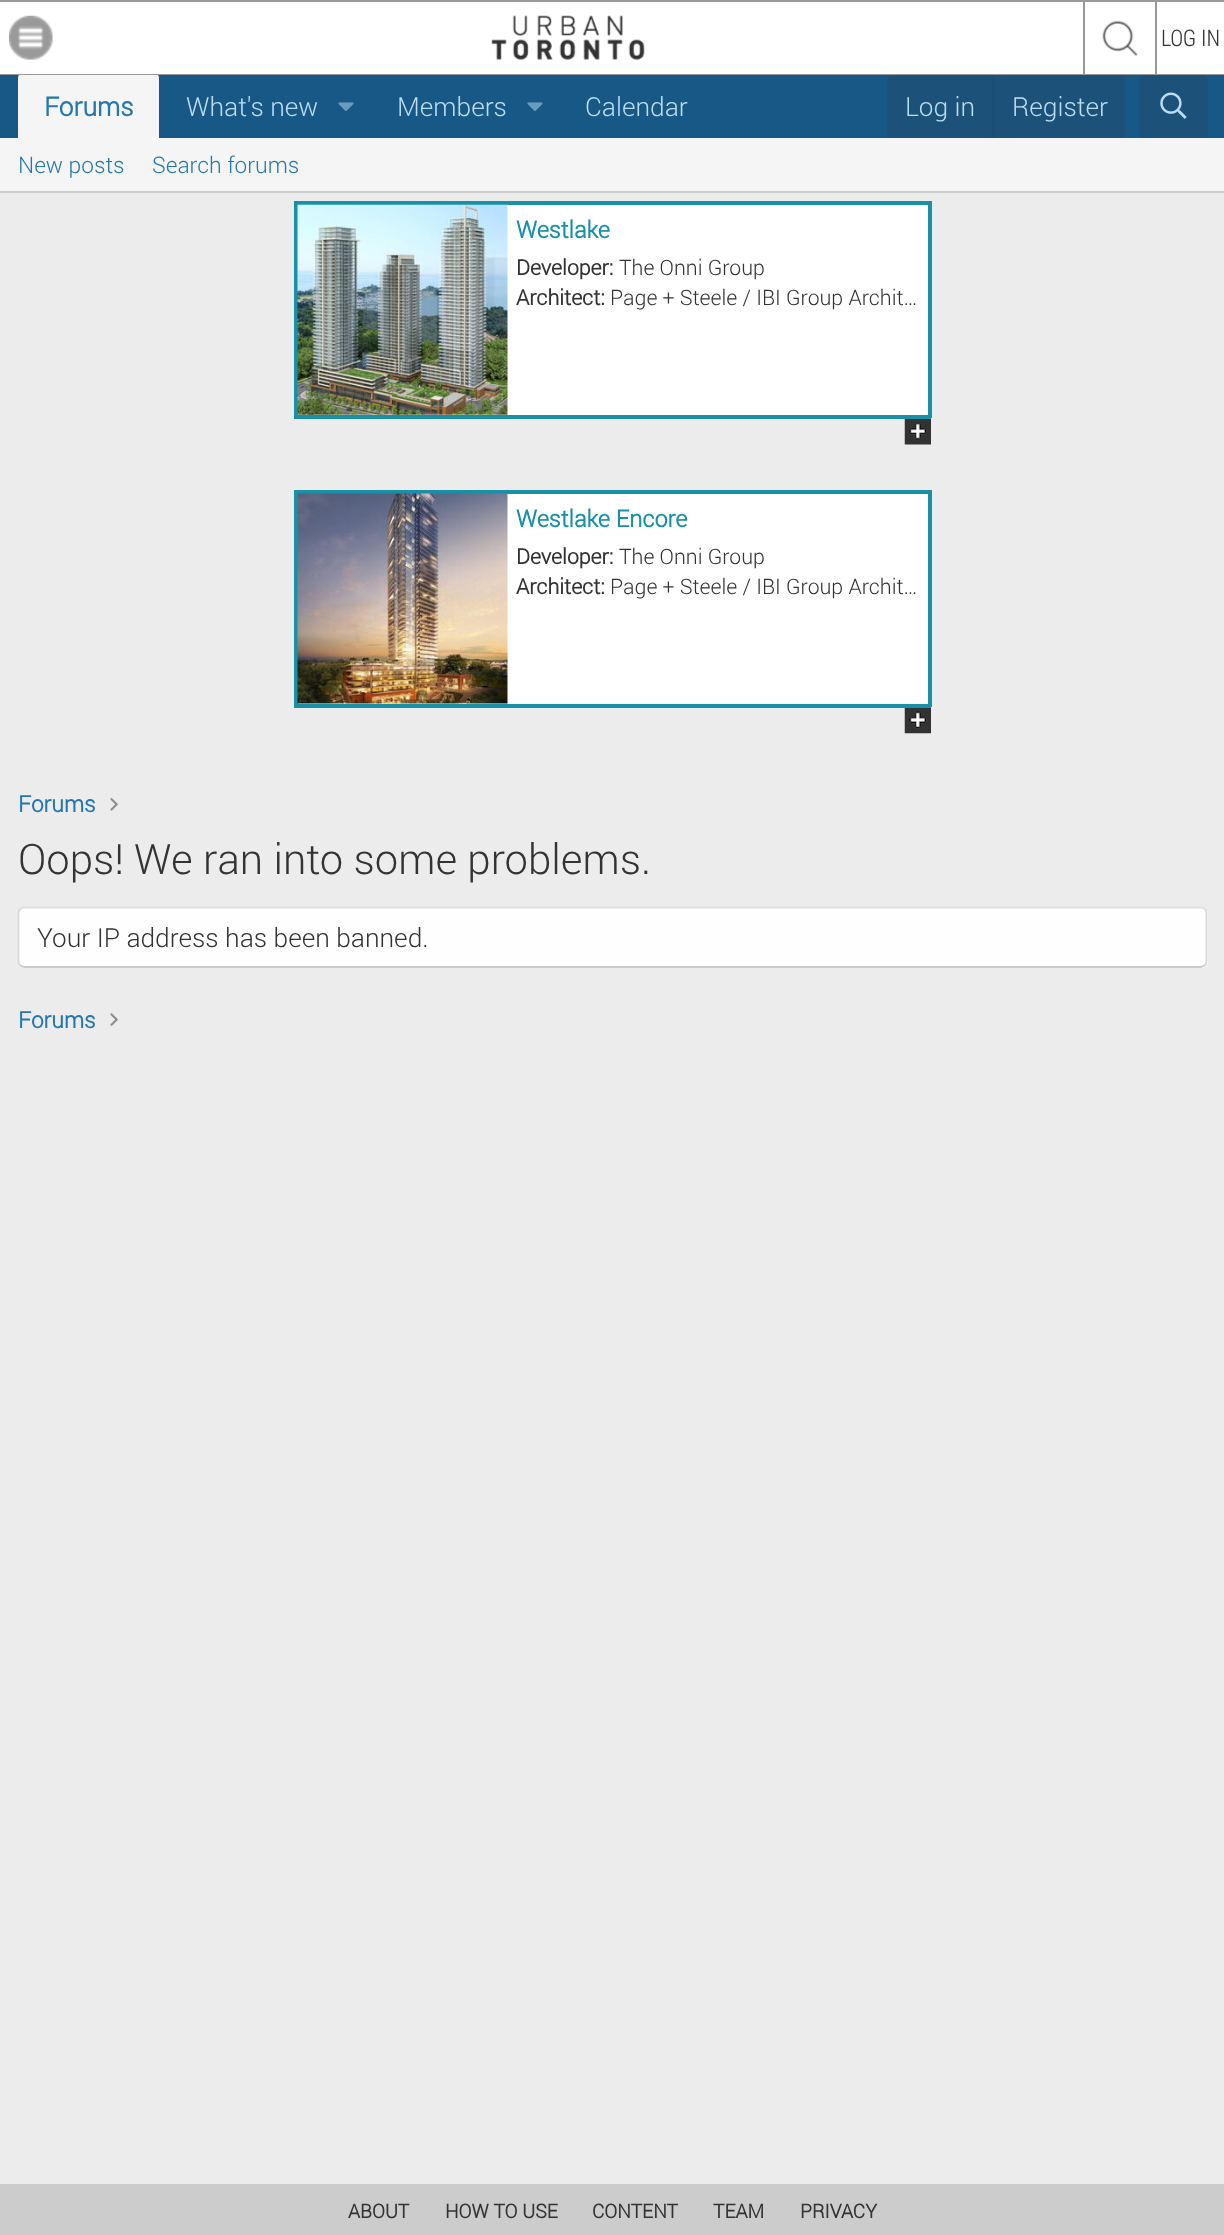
<!DOCTYPE html>
<meta charset="utf-8">
<style>body { margin: 0 } canvas { display: block }</style>
<canvas id="canvas" width="1224" height="2235"></canvas>
<img id="img1" src="images/1.png" hidden>
<img id="img2" src="images/2.png" hidden>
<img id="img3" src="images/3.png" hidden>
<img id="img4" src="images/4.png" hidden>
<img id="img5" src="images/5.png" hidden>
<img id="img6" src="images/6.png" hidden>
<img id="img7" src="images/7.png" hidden>
<img id="img8" src="images/8.png" hidden>
<img id="img9" src="images/9.png" hidden>
<img id="img10" src="images/10.png" hidden>
<img id="img11" src="images/11.png" hidden>
<script>
window.onload = function () {
    const canvas = document.getElementById('canvas');
    const context = canvas.getContext('2d');
    context.miterLimit = 4;
    context.fontKerning = 'normal';

    context.fillStyle = 'rgb(236, 236, 236)';
    context.fillRect(0, 0, 1224, 2235);
    context.fillStyle = 'rgb(153, 153, 153)';
    context.fillRect(0, 0, 1224, 2);
    context.fillStyle = 'rgb(24, 88, 134)';
    context.fillRect(0, 75, 1224, 63);
    context.fillStyle = 'rgb(245, 245, 245)';
    context.beginPath();
    context.roundRect(18, 74, 141, 64, [4, 4, 0, 0]);
    context.fill();
    context.fillStyle = 'rgb(28, 82, 122)';
    context.beginPath();
    context.roundRect(887, 74, 238, 64, [7, 7, 0, 0]);
    context.fill();
    context.fillStyle = 'rgb(31, 77, 111)';
    context.fillRect(992, 74, 2, 64);
    context.fillStyle = 'rgb(28, 82, 122)';
    context.beginPath();
    context.roundRect(1139, 74, 69, 64, [7, 7, 0, 0]);
    context.fill();
    context.fillStyle = 'rgb(153, 153, 153)';
    context.fillRect(0, 74, 1224, 1);
    context.fillStyle = 'rgb(255, 255, 255)';
    context.fillRect(0, 2, 1083, 72);
    context.drawImage(document.getElementById('img1'), 9, 15, 44, 45);
    context.fillRect(1085, 2, 70, 72);
    context.fillStyle = 'rgb(153, 153, 153)';
    context.fillRect(1083, 0, 2, 75);
    context.drawImage(document.getElementById('img2'), 1102, 20, 36, 36);
    context.drawImage(document.getElementById('img3'), 491, 15, 154, 45);
    context.fillStyle = 'rgb(255, 255, 255)';
    context.fillRect(1157, 2, 67, 72);
    context.fillStyle = 'rgb(153, 153, 153)';
    context.fillRect(1155, 0, 2, 75);
    context.drawImage(document.getElementById('img4'), 338, 102, 16, 9);
    context.drawImage(document.getElementById('img4'), 527, 102, 16, 9);
    context.drawImage(document.getElementById('img5'), 1160, 92, 27, 27);
    context.fillStyle = 'rgb(245, 245, 245)';
    context.fillRect(0, 138, 1224, 53);
    context.fillStyle = 'rgb(203, 203, 203)';
    context.fillRect(0, 191, 1224, 2);
    context.fillStyle = 'rgb(255, 255, 255)';
    context.fillRect(298, 205, 630, 210);
    context.fillStyle = 'rgb(23, 144, 168)';
    context.fillRect(294, 201, 637, 4);
    context.fillRect(928, 201, 4, 217);
    context.fillRect(294, 415, 637, 4);
    context.fillRect(294, 201, 4, 217);
    context.drawImage(document.getElementById('img6'), 297, 204, 211, 211);
    context.drawImage(document.getElementById('img7'), 904, 419, 27, 26);
    context.fillStyle = 'rgb(255, 255, 255)';
    context.fillRect(298, 494, 630, 210);
    context.fillStyle = 'rgb(23, 144, 168)';
    context.fillRect(294, 490, 637, 4);
    context.fillRect(928, 490, 4, 217);
    context.fillRect(294, 704, 637, 4);
    context.fillRect(294, 490, 4, 217);
    context.drawImage(document.getElementById('img8'), 297, 493, 211, 211);
    context.drawImage(document.getElementById('img9'), 904, 708, 27, 26);
    context.drawImage(document.getElementById('img10'), 110, 798, 8, 13);
    context.fillStyle = 'rgb(254, 254, 254)';
    context.beginPath();
    context.roundRect(18, 907, 1190, 61, 7);
    context.fill();
    context.beginPath();
    context.moveTo(20, 909);
    context.bezierCurveTo(21.5, 908, 23, 907.5, 24.5, 907.5);
    context.lineTo(1200.5, 907.5);
    context.bezierCurveTo(1202, 907.5, 1203.5, 908, 1205, 909);
    context.strokeStyle = 'rgb(223, 223, 223)';
    context.lineWidth = 1.8;
    context.stroke();
    context.beginPath();
    context.moveTo(1205, 909);
    context.bezierCurveTo(1206, 910.5, 1206.5, 912, 1206.5, 913.5);
    context.lineTo(1206.5, 961);
    context.bezierCurveTo(1206.5, 962.5, 1206, 964, 1205, 965);
    context.strokeStyle = 'rgb(216, 216, 216)';
    context.stroke();
    context.beginPath();
    context.moveTo(1205, 965);
    context.bezierCurveTo(1203.5, 966, 1202, 967, 1200.5, 967);
    context.lineTo(24.5, 967);
    context.bezierCurveTo(23, 967, 21.5, 966, 20, 965);
    context.strokeStyle = 'rgb(203, 203, 203)';
    context.stroke();
    context.beginPath();
    context.moveTo(20, 965);
    context.bezierCurveTo(19, 964, 18.5, 962.5, 18.5, 961);
    context.lineTo(18.5, 913.5);
    context.bezierCurveTo(18.5, 912, 19, 910.5, 20, 909);
    context.strokeStyle = 'rgb(216, 216, 216)';
    context.stroke();
    context.drawImage(document.getElementById('img11'), 110, 1013, 8, 13);
    context.fillStyle = 'rgb(204, 204, 204)';
    context.fillRect(0, 2184, 1224, 51);
    context.font = '300 22.75px Roboto Condensed';
    context.fillStyle = 'rgb(51, 51, 51)';
    context.fillText('LOG IN', 1161, 46);
    context.font = 'bold 26.25px Roboto';
    context.fillStyle = 'rgb(37, 119, 177)';
    context.fillText('Forums', 44, 116);
    context.font = '300 26.25px Roboto';
    context.fillStyle = 'rgb(188, 222, 245)';
    context.fillText('What\'s new', 186, 116);
    context.fillText('Members', 397, 116);
    context.fillText('Calendar', 585, 116);
    context.fillText('Log in', 905, 116);
    context.fillText('Register', 1012, 116);
    context.font = '300 22.75px Roboto';
    context.fillStyle = 'rgb(37, 119, 177)';
    context.fillText('New posts', 18, 173);
    context.fillText('Search forums', 152, 173);
    context.font = 'bold 23.5px Roboto';
    context.fillStyle = 'rgb(23, 144, 168)';
    context.fillText('Westlake', 516, 238);
    context.font = 'bold 21.3px Roboto';
    context.fillStyle = 'rgb(51, 51, 51)';
    context.fillText('Developer:', 516, 275);
    context.font = '300 21.3px Roboto';
    context.fillText('The Onni Group', 619, 275);
    context.font = 'bold 21.3px Roboto';
    context.fillText('Architect:', 516, 305);
    context.font = '300 21.3px Roboto';
    context.fillText('Page + Steele / IBI Group Archit…', 610, 305);
    context.font = 'bold 23.5px Roboto';
    context.fillStyle = 'rgb(23, 144, 168)';
    context.fillText('Westlake Encore', 516, 527);
    context.font = 'bold 21.3px Roboto';
    context.fillStyle = 'rgb(51, 51, 51)';
    context.fillText('Developer:', 516, 564);
    context.font = '300 21.3px Roboto';
    context.fillText('The Onni Group', 619, 564);
    context.font = 'bold 21.3px Roboto';
    context.fillText('Architect:', 516, 594);
    context.font = '300 21.3px Roboto';
    context.fillText('Page + Steele / IBI Group Archit…', 610, 594);
    context.font = 'bold 22.75px Roboto';
    context.fillStyle = 'rgb(37, 119, 177)';
    context.fillText('Forums', 18, 812);
    context.font = '300 42px Roboto';
    context.fillStyle = 'rgb(51, 51, 51)';
    context.fillText('Oops! We ran into some problems.', 18, 874);
    context.font = '300 26.25px Roboto';
    context.fillText('Your IP address has been banned.', 37, 947);
    context.font = 'bold 22.75px Roboto';
    context.fillStyle = 'rgb(37, 119, 177)';
    context.fillText('Forums', 18, 1028);
    context.font = 'bold 19.25px Roboto';
    context.fillStyle = 'rgb(51, 51, 51)';
    context.fillText('ABOUT', 348, 2218);
    context.fillText('HOW TO USE', 445, 2218);
    context.fillText('CONTENT', 592, 2218);
    context.fillText('TEAM', 713, 2218);
    context.fillText('PRIVACY', 800, 2218);
};
</script>
